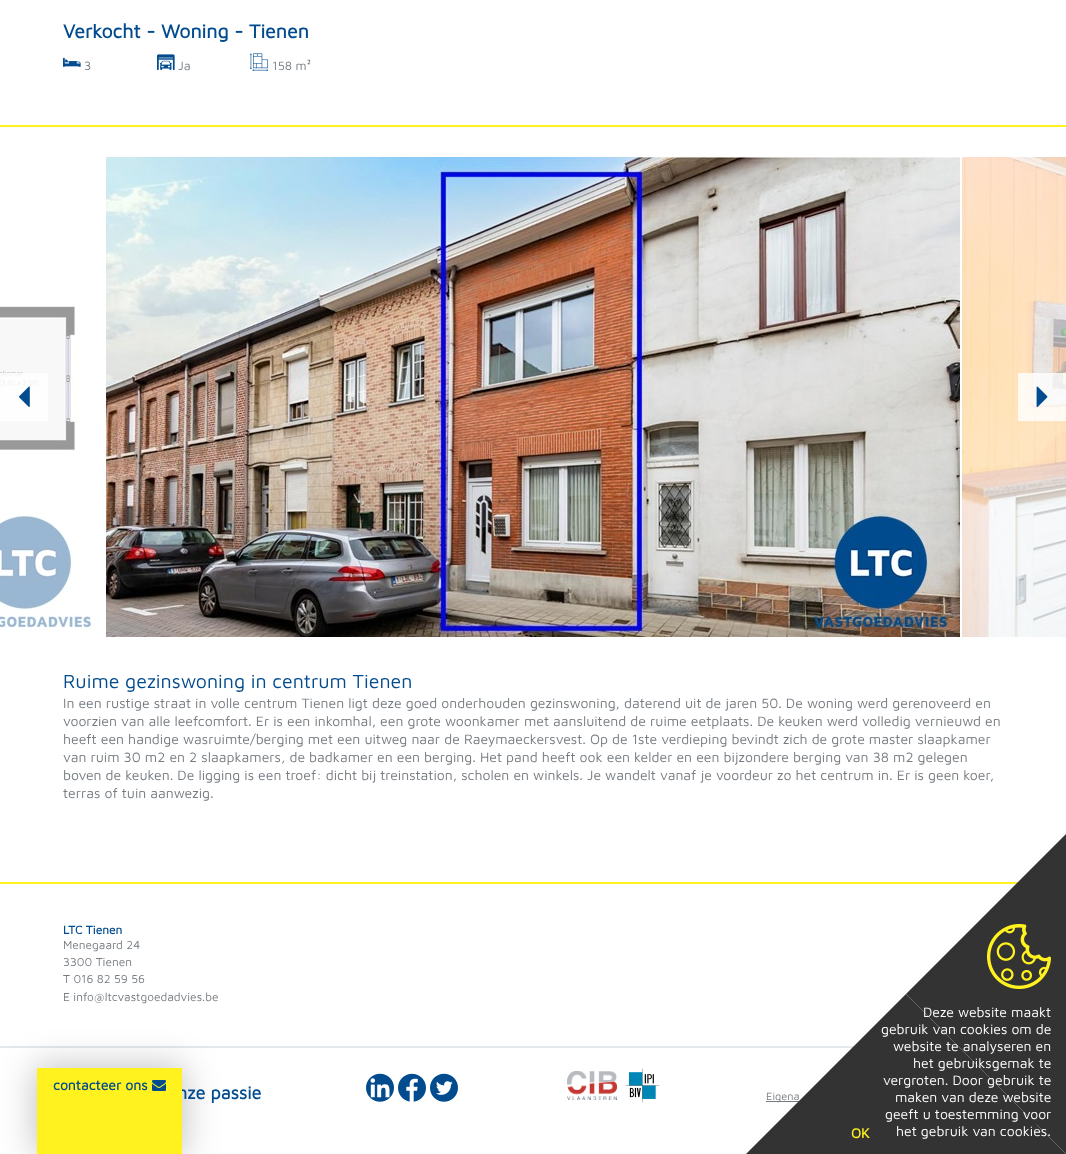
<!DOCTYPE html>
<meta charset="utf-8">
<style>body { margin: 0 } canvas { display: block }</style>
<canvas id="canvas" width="1066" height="1154"></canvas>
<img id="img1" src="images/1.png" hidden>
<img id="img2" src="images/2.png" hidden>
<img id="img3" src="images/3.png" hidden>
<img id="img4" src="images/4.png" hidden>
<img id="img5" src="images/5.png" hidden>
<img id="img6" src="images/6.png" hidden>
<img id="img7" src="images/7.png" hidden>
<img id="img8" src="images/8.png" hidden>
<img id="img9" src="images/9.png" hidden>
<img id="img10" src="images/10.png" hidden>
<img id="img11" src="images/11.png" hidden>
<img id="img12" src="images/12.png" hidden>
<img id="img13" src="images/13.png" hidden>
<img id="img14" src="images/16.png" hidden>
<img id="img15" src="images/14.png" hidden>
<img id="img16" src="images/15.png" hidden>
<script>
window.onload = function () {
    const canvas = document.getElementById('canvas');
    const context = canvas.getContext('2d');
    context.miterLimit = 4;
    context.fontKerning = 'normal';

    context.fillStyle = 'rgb(255, 255, 255)';
    context.fillRect(0, 0, 1066, 1154);
    context.fillStyle = 'rgb(255, 242, 31)';
    context.fillRect(0, 125, 1066, 2);
    context.drawImage(document.getElementById('img1'), 63, 57, 18, 10);
    context.drawImage(document.getElementById('img2'), 157, 54, 18, 17);
    context.drawImage(document.getElementById('img3'), 250, 53, 19, 18);
    context.drawImage(document.getElementById('img4'), 0, 306, 99, 331);
    context.drawImage(document.getElementById('img5'), 106, 157, 854, 480);
    context.drawImage(document.getElementById('img6'), 962, 157, 104, 480);
    context.fillStyle = 'rgba(255, 255, 255, 0.8)';
    context.fillRect(0, 373, 48, 48);
    context.drawImage(document.getElementById('img7'), 19, 386, 11, 22);
    context.fillRect(1018, 373, 48, 48);
    context.drawImage(document.getElementById('img8'), 1036, 386, 12, 22);
    context.fillStyle = 'rgb(255, 242, 31)';
    context.fillRect(0, 882, 1018, 2);
    context.fillStyle = 'rgb(228, 232, 235)';
    context.fillRect(0, 1046, 960, 2);
    context.drawImage(document.getElementById('img9'), 366, 1073, 28, 29);
    context.drawImage(document.getElementById('img10'), 398, 1073, 28, 29);
    context.drawImage(document.getElementById('img11'), 430, 1073, 28, 29);
    context.drawImage(document.getElementById('img12'), 567, 1071, 50, 29);
    context.drawImage(document.getElementById('img13'), 625, 1068, 35, 35);
    context.fillStyle = 'rgb(118, 124, 129)';
    context.fillRect(766, 1101, 33, 1);
    context.drawImage(document.getElementById('img14'), 1028, 1116, 9, 9);
    context.fillStyle = 'rgb(51, 51, 51)';
    context.beginPath();
    context.moveTo(1066, 834);
    context.lineTo(1066, 1154);
    context.lineTo(906, 994);
    context.closePath();
    context.fill();
    context.drawImage(document.getElementById('img15'), 987, 924, 64, 65);
    context.fillStyle = 'rgba(0, 0, 0, 0.24)';
    context.filter = 'blur(17.5px)';
    context.beginPath();
    context.rect(35, 1066, 149, 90);
    context.fill();
    context.filter = 'none';
    context.font = 'bold 19.6px Maven Pro';
    context.fillStyle = 'rgb(1, 75, 142)';
    context.fillText('Verkocht - Woning - Tienen', 63, 38);
    context.font = '12.5px Maven Pro';
    context.fillStyle = 'rgb(118, 124, 129)';
    context.fillText('3', 84, 70);
    context.fillText('Ja', 178, 70);
    context.fillText('158 m²', 272, 70);
    context.font = '19.6px Maven Pro';
    context.fillStyle = 'rgb(1, 75, 142)';
    context.fillText('Ruime gezinswoning in centrum Tienen', 63, 688);
    context.font = '14px Maven Pro';
    context.fillStyle = 'rgb(118, 124, 129)';
    context.fillText('In een rustige straat in volle centrum Tienen ligt deze goed onderhouden gezinswoning, daterend uit de jaren 50. De woning werd gerenoveerd en', 63, 708);
    context.fillText('voorzien van alle leefcomfort. Er is een inkomhal, een grote woonkamer met aansluitend de ruime eetplaats. De keuken werd volledig vernieuwd en', 63, 726);
    context.fillText('heeft een handige wasruimte/berging met een uitweg naar de Raeymaeckersvest. Op de 1ste verdieping bevindt zich de grote master slaapkamer', 63, 744);
    context.fillText('van ruim 30 m2 en 2 slaapkamers, de badkamer en een berging. Het pand heeft ook een kelder en een bijzondere berging van 38 m2 gelegen', 63, 762);
    context.fillText('boven de keuken. De ligging is een troef: dicht bij treinstation, scholen en winkels. Je wandelt vanaf je voordeur zo het centrum in. Er is geen koer,', 63, 780);
    context.fillText('terras of tuin aanwezig.', 63, 798);
    context.font = 'bold 11.9px Maven Pro';
    context.fillStyle = 'rgb(1, 75, 142)';
    context.fillText('LTC Tienen', 63, 934);
    context.font = '11.9px Maven Pro';
    context.fillStyle = 'rgb(118, 124, 129)';
    context.fillText('Menegaard 24', 63, 949);
    context.fillText('3300 Tienen', 63, 966);
    context.fillText('T 016 82 59 56', 63, 983);
    context.fillText('E info@ltcvastgoedadvies.be', 63, 1001);
    context.font = 'bold 18px Maven Pro';
    context.fillStyle = 'rgb(1, 75, 142)';
    context.fillText('nze passie', 177, 1099);
    context.font = '11px Maven Pro';
    context.fillStyle = 'rgb(118, 124, 129)';
    context.fillText('Eigena', 766, 1100);
    context.fillStyle = 'rgb(51, 51, 51)';
    context.beginPath();
    context.moveTo(1066, 1154);
    context.lineTo(746, 1154);
    context.lineTo(906, 994);
    context.closePath();
    context.fill();
    context.font = 'bold 14px Maven Pro';
    context.fillStyle = 'rgb(255, 242, 31)';
    context.fillText('OK', 851, 1138);
    context.font = '14px Maven Pro';
    context.fillStyle = 'rgb(255, 255, 255)';
    context.fillText('Deze website maakt', 923, 1017);
    context.fillText('gebruik van cookies om de', 881, 1034);
    context.fillText('website te analyseren en', 893, 1051);
    context.fillText('het gebruiksgemak te', 913, 1068);
    context.fillText('vergroten. Door gebruik te', 883, 1085);
    context.fillText('maken van deze website', 895, 1102);
    context.fillText('geeft u toestemming voor', 885, 1119);
    context.fillText('het gebruik van cookies.', 896, 1136);
    context.fillStyle = 'rgb(255, 242, 31)';
    context.fillRect(37, 1068, 145, 86);
    context.font = 'bold 14px Maven Pro';
    context.fillStyle = 'rgb(1, 75, 142)';
    context.fillText('contacteer ons', 53, 1090);
    context.drawImage(document.getElementById('img16'), 152, 1080, 14, 11);
};
</script>
